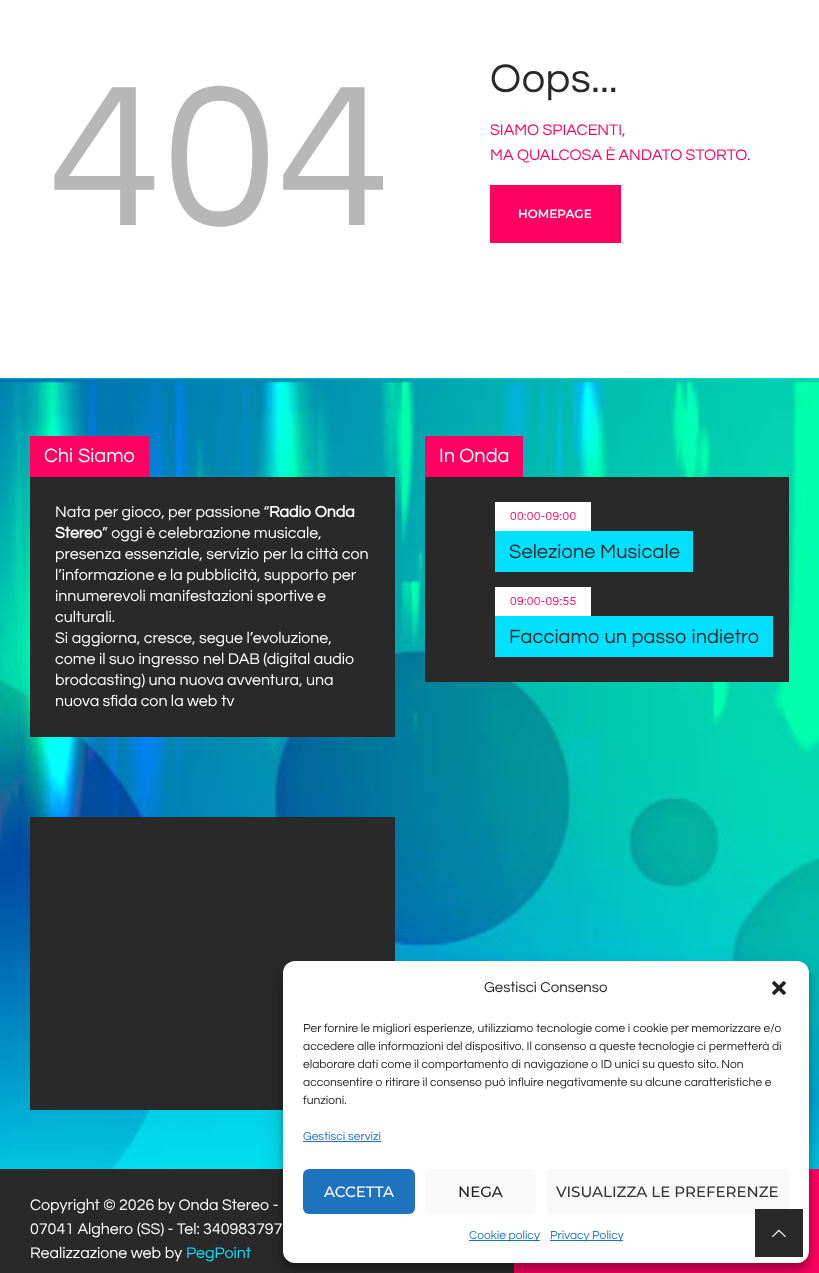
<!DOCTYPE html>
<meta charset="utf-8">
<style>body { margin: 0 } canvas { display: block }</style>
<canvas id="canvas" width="819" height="1273"></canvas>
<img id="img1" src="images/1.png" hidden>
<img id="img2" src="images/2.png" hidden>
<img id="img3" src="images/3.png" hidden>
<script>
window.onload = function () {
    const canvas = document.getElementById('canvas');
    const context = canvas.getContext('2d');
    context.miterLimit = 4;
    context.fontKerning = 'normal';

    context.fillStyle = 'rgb(255, 255, 255)';
    context.fillRect(0, 0, 819, 1273);
    context.fillStyle = 'rgb(255, 0, 96)';
    context.fillRect(490, 185, 131, 58);
    context.drawImage(document.getElementById('img1'), 0, 378, 819, 791);
    context.fillStyle = 'rgb(41, 41, 41)';
    context.fillRect(30, 477, 365, 260);
    context.fillStyle = 'rgb(255, 0, 96)';
    context.fillRect(30, 436, 119, 41);
    context.fillStyle = 'rgb(41, 41, 41)';
    context.fillRect(425, 477, 364, 205);
    context.fillStyle = 'rgb(255, 0, 96)';
    context.fillRect(425, 436, 98, 41);
    context.fillStyle = 'rgb(255, 255, 255)';
    context.fillRect(495, 502, 96, 29);
    context.fillStyle = 'rgb(0, 224, 255)';
    context.fillRect(495, 531, 198, 41);
    context.fillStyle = 'rgb(255, 255, 255)';
    context.fillRect(495, 587, 96, 29);
    context.fillStyle = 'rgb(0, 224, 255)';
    context.fillRect(495, 616, 278, 41);
    context.fillStyle = 'rgb(41, 41, 41)';
    context.fillRect(30, 817, 365, 293);
    context.fillStyle = 'rgb(255, 0, 96)';
    context.fillRect(514, 1169, 305, 104);
    context.fillStyle = 'rgb(41, 41, 41)';
    context.fillRect(0, 1169, 514, 104);
    context.fillStyle = 'rgba(0, 0, 0, 0.23)';
    context.filter = 'blur(3px)';
    context.beginPath();
    context.roundRect(283, 967, 526, 302, 12);
    context.fill();
    context.filter = 'none';
    context.fillStyle = 'rgba(0, 0, 0, 0.19)';
    context.filter = 'blur(10px)';
    context.beginPath();
    context.roundRect(283, 971, 526, 302, 12);
    context.fill();
    context.filter = 'none';
    context.fillStyle = 'rgb(255, 255, 255)';
    context.beginPath();
    context.roundRect(283, 961, 526, 302, 12);
    context.fill();
    context.drawImage(document.getElementById('img2'), 772, 981, 14, 14);
    context.fillStyle = 'rgb(30, 115, 190)';
    context.fillRect(303, 1141, 78, 1);
    context.beginPath();
    context.roundRect(303, 1169, 112, 45, 6);
    context.fill();
    context.fillStyle = 'rgb(249, 249, 249)';
    context.beginPath();
    context.roundRect(425, 1169, 111, 45, 6);
    context.fill();
    context.beginPath();
    context.roundRect(546, 1169, 243, 45, 6);
    context.fill();
    context.fillStyle = 'rgb(30, 115, 190)';
    context.fillRect(469, 1240, 71, 1);
    context.fillRect(550, 1240, 73, 1);
    context.fillStyle = 'rgb(41, 41, 41)';
    context.fillRect(755, 1209, 48, 48);
    context.drawImage(document.getElementById('img3'), 772, 1229, 14, 8);
    context.font = '208px Questrial';
    context.fillStyle = 'rgb(183, 183, 183)';
    context.fillText('404', 48, 225);
    context.letterSpacing = '0.5px';
    context.font = '41.5px Questrial';
    context.fillStyle = 'rgb(41, 41, 41)';
    context.fillText('Oops...', 490, 92);
    context.letterSpacing = '0px';
    context.font = '16px Questrial';
    context.fillStyle = 'rgb(255, 0, 96)';
    context.fillText('SIAMO SPIACENTI,', 490, 135);
    context.fillText('MA QUALCOSA È ANDATO STORTO.', 490, 160);
    context.font = '600 12px Montserrat';
    context.fillStyle = 'rgb(255, 255, 255)';
    context.fillText('HOMEPAGE', 518, 218);
    context.font = '20px Questrial';
    context.fillText('Chi Siamo', 44, 462);
    context.font = '16px Questrial';
    context.fillText('Nata per gioco, per passione “', 55, 517);
    context.font = 'bold 16px Questrial';
    context.fillText('Radio Onda', 269, 517);
    context.fillText('Stereo', 55, 538);
    context.font = '16px Questrial';
    context.fillText('” oggi è celebrazione musicale,', 102, 538);
    context.fillText('presenza essenziale, servizio per la città con', 55, 559);
    context.fillText('l’informazione e la pubblicità, supporto per', 55, 580);
    context.fillText('innumerevoli manifestazioni sportive e', 55, 601);
    context.fillText('culturali.', 55, 622);
    context.fillText('Si aggiorna, cresce, segue l’evoluzione,', 55, 643);
    context.fillText('come il suo ingresso nel DAB (digital audio', 55, 664);
    context.fillText('brodcasting) una nuova avventura, una', 55, 685);
    context.fillText('nuova sfida con la web tv', 55, 706);
    context.font = '20px Questrial';
    context.fillText('In Onda', 439, 462);
    context.letterSpacing = '0.4px';
    context.font = '12px Questrial';
    context.fillStyle = 'rgb(255, 0, 96)';
    context.fillText('00:00-09:00', 510, 520);
    context.letterSpacing = '0.1px';
    context.font = '20px Questrial';
    context.fillStyle = 'rgb(41, 41, 41)';
    context.fillText('Selezione Musicale', 509, 558);
    context.letterSpacing = '0.4px';
    context.font = '12px Questrial';
    context.fillStyle = 'rgb(255, 0, 96)';
    context.fillText('09:00-09:55', 510, 605);
    context.letterSpacing = '0.1px';
    context.font = '20px Questrial';
    context.fillStyle = 'rgb(41, 41, 41)';
    context.fillText('Facciamo un passo indietro', 509, 643);
    context.letterSpacing = '0px';
    context.font = '16px Questrial';
    context.fillStyle = 'rgb(255, 255, 255)';
    context.fillText('Copyright © 2026 by Onda Stereo -', 30, 1210);
    context.fillText('07041 Alghero (SS) - Tel: 340983797', 30, 1234);
    context.fillText('Realizzazione web by', 30, 1258);
    context.fillStyle = 'rgb(0, 224, 255)';
    context.fillText('PegPoint', 186, 1258);
    context.font = '15px Questrial';
    context.fillStyle = 'rgb(34, 34, 34)';
    context.fillText('Gestisci Consenso', 484, 992);
    context.font = '12px Questrial';
    context.fillText('Per fornire le migliori esperienze, utilizziamo tecnologie come i cookie per memorizzare e/o', 303, 1032);
    context.fillText('accedere alle informazioni del dispositivo. Il consenso a queste tecnologie ci permetterà di', 303, 1050);
    context.fillText('elaborare dati come il comportamento di navigazione o ID unici su questo sito. Non', 303, 1068);
    context.fillText('acconsentire o ritirare il consenso può influire negativamente su alcune caratteristiche e', 303, 1086);
    context.fillText('funzioni.', 303, 1104);
    context.fillStyle = 'rgb(30, 115, 190)';
    context.fillText('Gestisci servizi', 303, 1140);
    context.font = '500 15px Montserrat';
    context.fillStyle = 'rgb(255, 255, 255)';
    context.fillText('ACCETTA', 324, 1197);
    context.fillStyle = 'rgb(34, 34, 34)';
    context.fillText('NEGA', 458, 1197);
    context.fillStyle = 'rgb(51, 51, 51)';
    context.fillText('VISUALIZZA LE PREFERENZE', 556, 1197);
    context.font = '12px Questrial';
    context.fillStyle = 'rgb(30, 115, 190)';
    context.fillText('Cookie policy', 469, 1239);
    context.fillText('Privacy Policy', 550, 1239);
};
</script>
